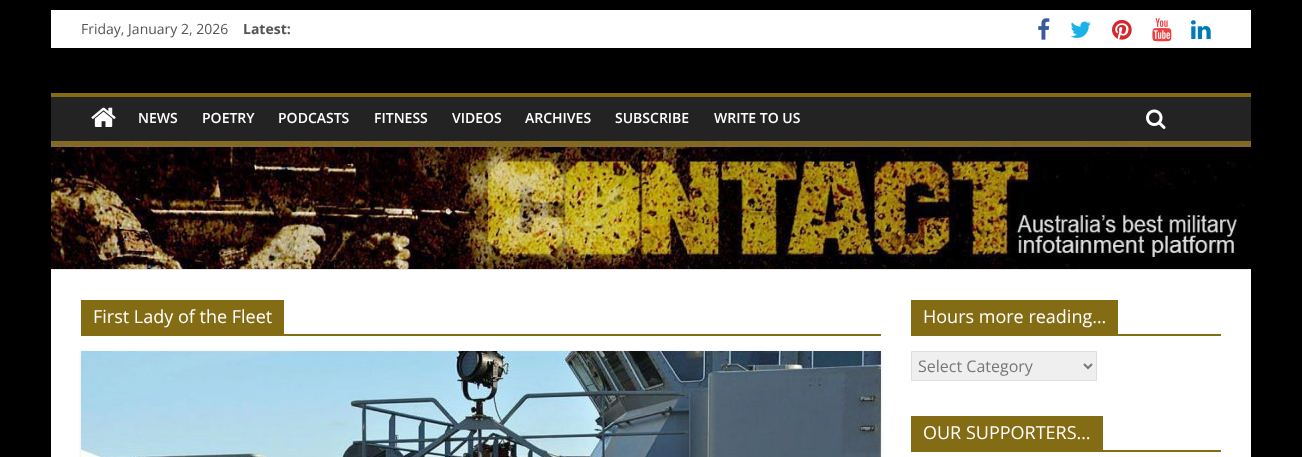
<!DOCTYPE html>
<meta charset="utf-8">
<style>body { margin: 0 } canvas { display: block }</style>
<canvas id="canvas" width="1302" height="457"></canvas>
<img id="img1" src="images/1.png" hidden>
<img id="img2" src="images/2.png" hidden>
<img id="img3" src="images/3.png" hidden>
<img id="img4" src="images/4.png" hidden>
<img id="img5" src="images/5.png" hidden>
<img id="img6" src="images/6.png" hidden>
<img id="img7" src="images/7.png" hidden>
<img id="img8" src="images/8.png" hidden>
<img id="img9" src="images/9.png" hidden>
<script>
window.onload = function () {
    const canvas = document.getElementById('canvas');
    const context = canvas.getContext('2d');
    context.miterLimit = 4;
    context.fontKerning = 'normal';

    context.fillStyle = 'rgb(0, 0, 0)';
    context.fillRect(0, 0, 1302, 457);
    context.fillStyle = 'rgb(255, 255, 255)';
    context.fillRect(51, 10, 1200, 38);
    context.drawImage(document.getElementById('img1'), 1038, 18, 12, 22);
    context.drawImage(document.getElementById('img2'), 1070, 21, 21, 17);
    context.drawImage(document.getElementById('img3'), 1112, 19, 20, 21);
    context.drawImage(document.getElementById('img4'), 1152, 18, 20, 24);
    context.drawImage(document.getElementById('img5'), 1191, 20, 20, 19);
    context.fillStyle = 'rgb(35, 35, 35)';
    context.fillRect(51, 97, 1200, 44);
    context.fillStyle = 'rgb(132, 108, 21)';
    context.fillRect(51, 93, 1200, 4);
    context.drawImage(document.getElementById('img6'), 91, 107, 25, 20);
    context.drawImage(document.getElementById('img7'), 1146, 109, 20, 20);
    context.drawImage(document.getElementById('img8'), 51, 141, 1200, 128);
    context.fillStyle = 'rgb(234, 234, 234)';
    context.fillRect(51, 269, 1200, 1);
    context.fillStyle = 'rgb(255, 255, 255)';
    context.fillRect(51, 270, 1200, 187);
    context.fillStyle = 'rgb(132, 108, 21)';
    context.fillRect(81, 334, 800, 2);
    context.fillRect(81, 300, 203, 34);
    context.fillStyle = 'rgba(0, 0, 0, 0.1)';
    context.filter = 'blur(1.5px)';
    context.beginPath();
    context.rect(81, 352, 800, 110);
    context.fill();
    context.filter = 'none';
    context.drawImage(document.getElementById('img9'), 81, 351, 800, 106);
    context.fillStyle = 'rgb(132, 108, 21)';
    context.fillRect(911, 334, 310, 2);
    context.fillRect(911, 300, 207, 34);
    context.fillStyle = 'rgb(239, 239, 239)';
    context.beginPath();
    context.rect(911.5, 351.5, 185, 29);
    context.fill();
    context.strokeStyle = 'rgb(221, 221, 221)';
    context.stroke();
    context.beginPath();
    context.moveTo(1084, 364);
    context.lineTo(1088, 368);
    context.lineTo(1092, 364);
    context.strokeStyle = 'rgb(119, 119, 119)';
    context.lineWidth = 2;
    context.stroke();
    context.fillStyle = 'rgb(132, 108, 21)';
    context.fillRect(911, 450, 310, 2);
    context.fillRect(911, 416, 192, 34);
    context.font = '14px Open Sans';
    context.fillStyle = 'rgb(85, 85, 85)';
    context.fillText('Friday, January 2, 2026', 81, 34);
    context.font = 'bold 14px Open Sans';
    context.fillText('Latest:', 243, 34);
    context.font = '600 14px Open Sans';
    context.fillStyle = 'rgb(255, 255, 255)';
    context.fillText('NEWS', 138, 123);
    context.fillText('POETRY', 202, 123);
    context.fillText('PODCASTS', 278, 123);
    context.fillText('FITNESS', 374, 123);
    context.fillText('VIDEOS', 452, 123);
    context.fillText('ARCHIVES', 525, 123);
    context.fillText('SUBSCRIBE', 615, 123);
    context.fillText('WRITE TO US', 714, 123);
    context.font = '18px Open Sans';
    context.fillText('First Lady of the Fleet', 93, 323);
    context.fillText('Hours more reading…', 923, 323);
    context.font = '16px Open Sans';
    context.fillStyle = 'rgb(119, 119, 119)';
    context.fillText('Select Category', 918, 372);
    context.font = '18px Open Sans';
    context.fillStyle = 'rgb(255, 255, 255)';
    context.fillText('OUR SUPPORTERS…', 923, 439);
};
</script>
